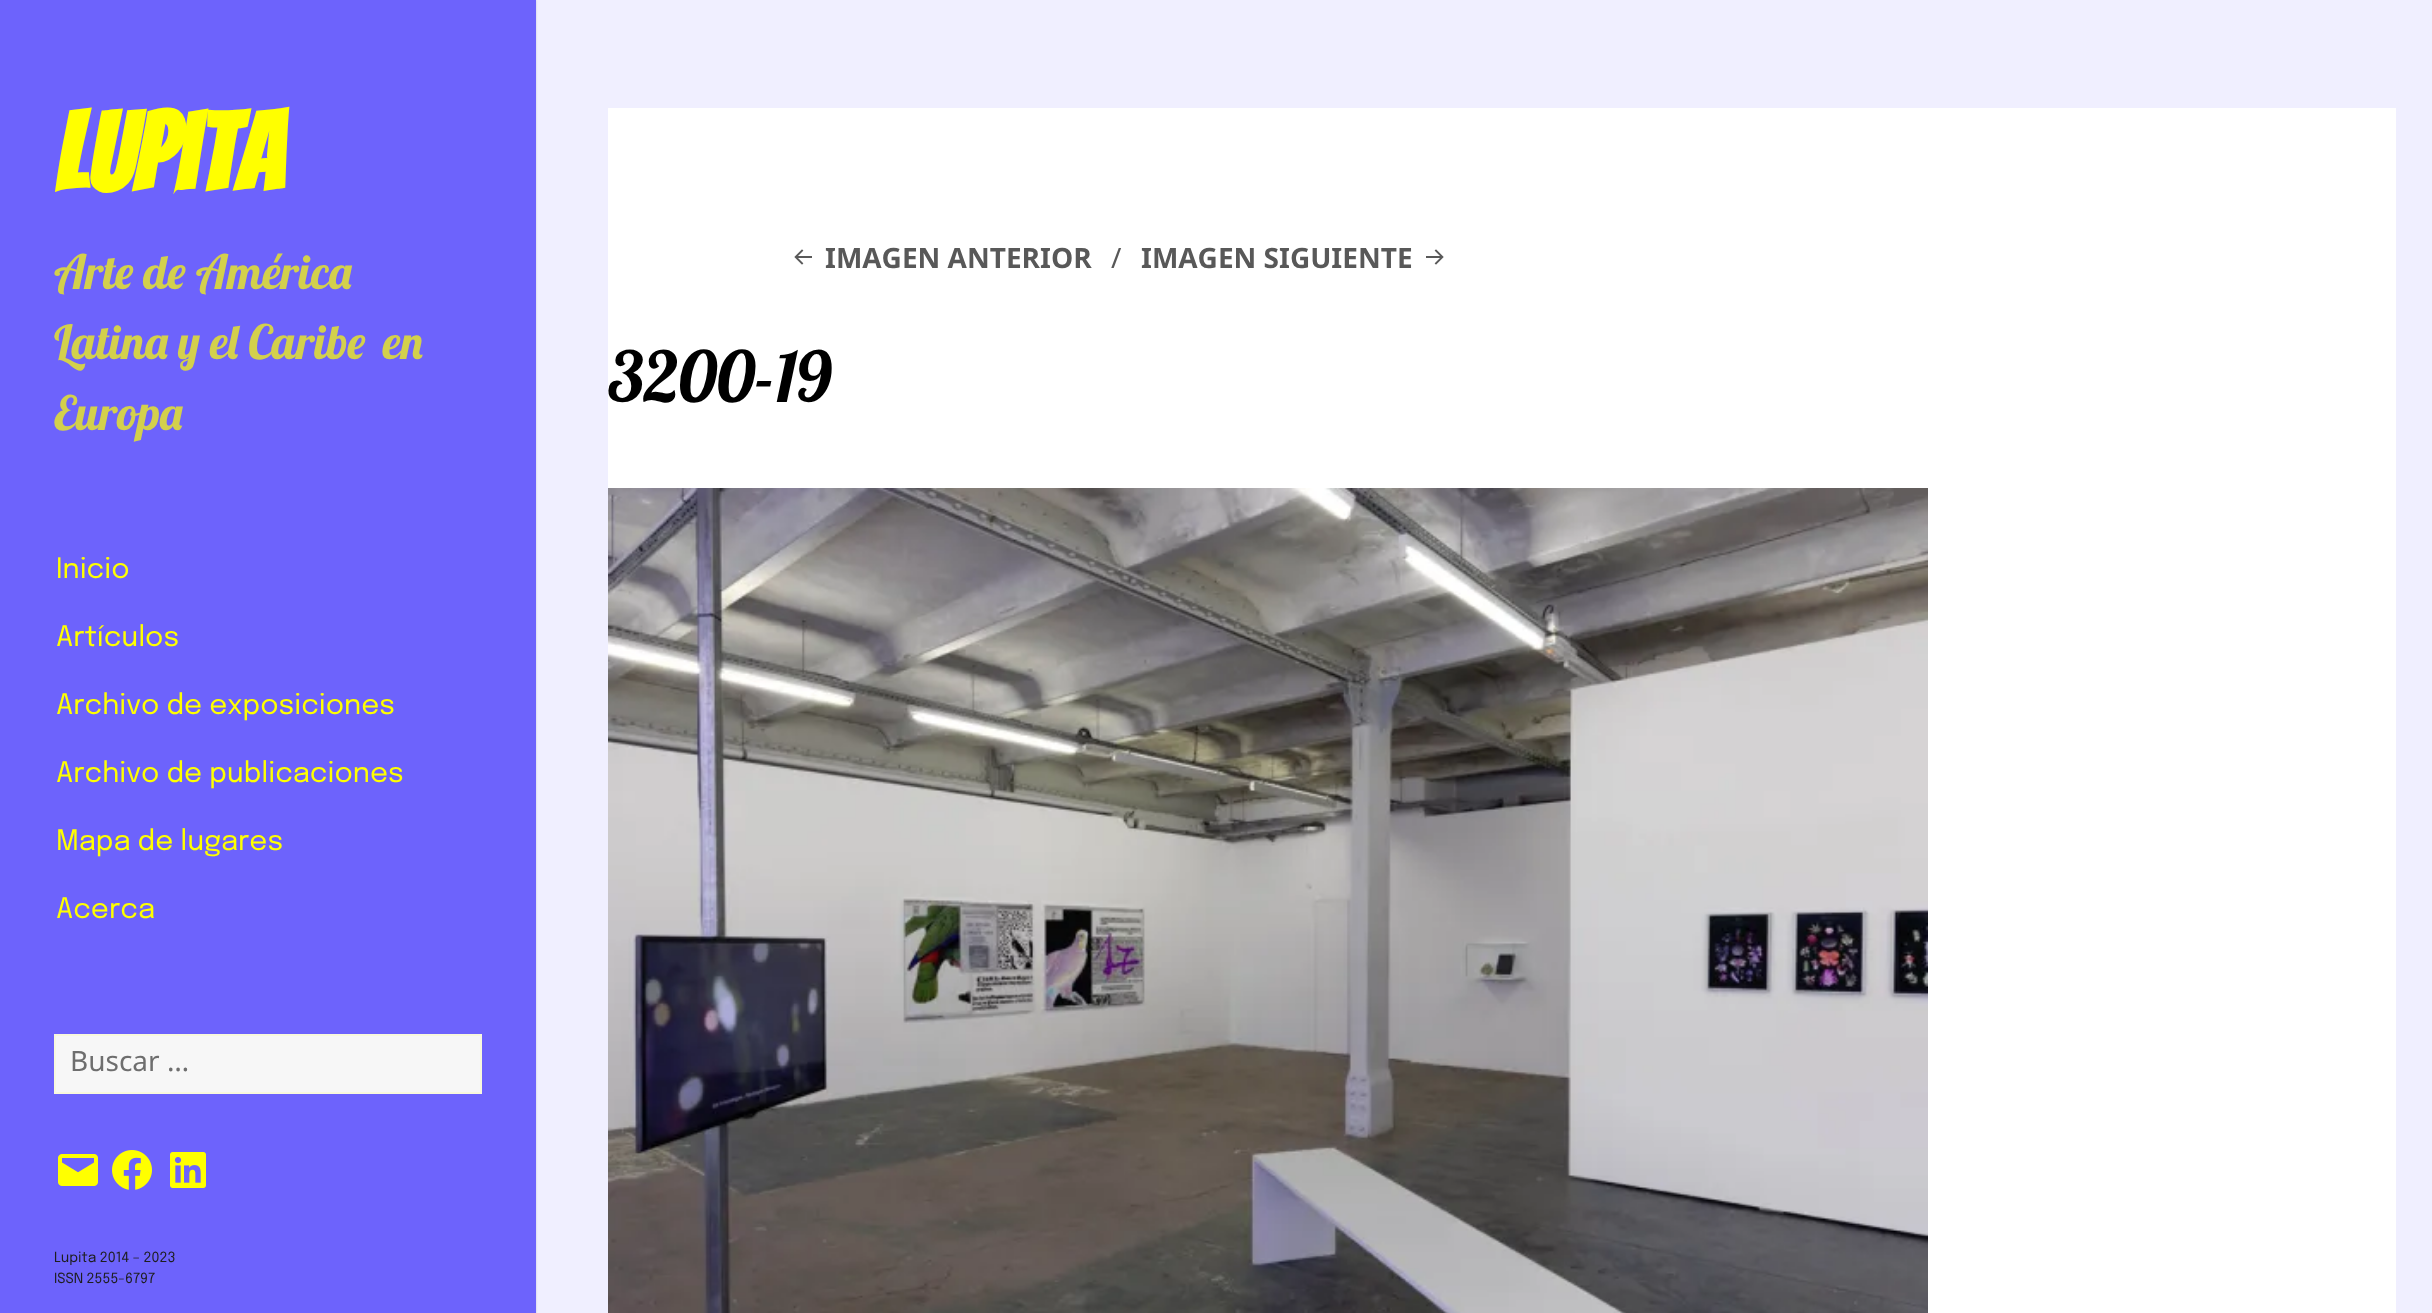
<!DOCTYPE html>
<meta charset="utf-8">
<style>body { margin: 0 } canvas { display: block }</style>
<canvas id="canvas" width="2432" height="1313"></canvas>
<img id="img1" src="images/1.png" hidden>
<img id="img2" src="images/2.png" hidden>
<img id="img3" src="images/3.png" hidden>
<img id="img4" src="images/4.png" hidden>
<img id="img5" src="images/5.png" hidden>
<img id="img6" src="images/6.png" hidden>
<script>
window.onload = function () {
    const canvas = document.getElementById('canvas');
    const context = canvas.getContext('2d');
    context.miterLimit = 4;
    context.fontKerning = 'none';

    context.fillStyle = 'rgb(240, 239, 255)';
    context.fillRect(0, 0, 2432, 1313);
    context.fillStyle = 'rgba(0, 0, 0, 0.15)';
    context.filter = 'blur(1px)';
    context.beginPath();
    context.rect(0, 0, 536, 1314);
    context.fill();
    context.filter = 'none';
    context.fillStyle = 'rgb(109, 99, 252)';
    context.fillRect(0, 0, 536, 1313);
    context.fillStyle = 'rgb(247, 247, 247)';
    context.beginPath();
    context.rect(55, 1035, 426, 58);
    context.fill();
    context.strokeStyle = 'rgb(248, 248, 222)';
    context.lineWidth = 2;
    context.stroke();
    context.drawImage(document.getElementById('img1'), 58, 1154, 40, 32);
    context.drawImage(document.getElementById('img2'), 112, 1150, 40, 40);
    context.drawImage(document.getElementById('img3'), 170, 1152, 36, 36);
    context.fillStyle = 'rgb(255, 255, 255)';
    context.fillRect(608, 108, 1788, 1205);
    context.drawImage(document.getElementById('img4'), 794, 249, 18, 16);
    context.drawImage(document.getElementById('img5'), 1426, 249, 18, 16);
    context.drawImage(document.getElementById('img6'), 608, 488, 1320, 825);
    context.font = 'bold 109px Bangers';
    context.fillStyle = 'rgb(255, 255, 0)';
    context.fillText('Lupita', 54, 191);
    context.font = '47.25px Lobster';
    context.fillStyle = 'rgb(211, 208, 76)';
    context.fillText('Arte de América', 54, 289);
    context.fillText('Latina y el Caribe', 54, 359);
    context.fillText('en', 383, 359);
    context.fillText('Europa', 54, 430);
    context.font = '28px Epilogue';
    context.fillStyle = 'rgb(255, 255, 0)';
    context.fillText('Inicio', 56, 578);
    context.fillText('Artículos', 56, 646);
    context.fillText('Archivo de exposiciones', 56, 714);
    context.fillText('Archivo de publicaciones', 56, 782);
    context.fillText('Mapa de lugares', 56, 850);
    context.fillText('Acerca', 56, 918);
    context.font = '28px Noto Sans';
    context.fillStyle = 'rgb(110, 110, 110)';
    context.fillText('Buscar …', 70, 1071);
    context.font = '14px Epilogue';
    context.fillStyle = 'rgb(30, 30, 30)';
    context.fillText('Lupita 2014 – 2023', 54, 1262);
    context.fillText('ISSN 2555-6797', 54, 1283);
    context.font = 'bold 28px Noto Sans';
    context.fillStyle = 'rgb(88, 88, 88)';
    context.fillText('IMAGEN ANTERIOR', 825, 268);
    context.font = '28px Noto Sans';
    context.fillText('∕', 1111, 268);
    context.font = 'bold 28px Noto Sans';
    context.fillText('IMAGEN SIGUIENTE', 1141, 268);
    context.font = '70px Lobster';
    context.fillStyle = 'rgb(0, 0, 0)';
    context.fillText('3200-19', 608, 402);
};
</script>
